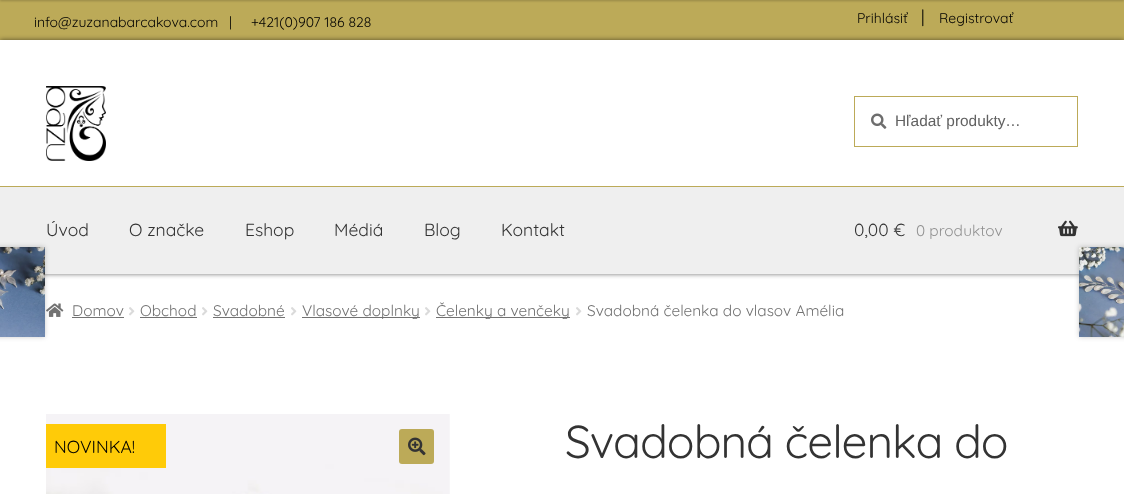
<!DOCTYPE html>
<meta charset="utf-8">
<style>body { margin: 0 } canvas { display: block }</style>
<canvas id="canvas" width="1124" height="494"></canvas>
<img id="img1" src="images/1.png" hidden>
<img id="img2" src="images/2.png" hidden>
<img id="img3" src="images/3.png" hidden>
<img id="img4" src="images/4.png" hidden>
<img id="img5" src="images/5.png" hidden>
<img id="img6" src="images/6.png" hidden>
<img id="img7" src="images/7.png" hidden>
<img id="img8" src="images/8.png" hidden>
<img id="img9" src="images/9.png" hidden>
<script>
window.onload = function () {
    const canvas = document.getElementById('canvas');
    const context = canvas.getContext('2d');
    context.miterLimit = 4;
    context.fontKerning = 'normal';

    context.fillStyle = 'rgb(255, 255, 255)';
    context.fillRect(0, 0, 1124, 494);
    context.fillStyle = 'rgb(188, 170, 88)';
    context.fillRect(0, 0, 1124, 40);
    context.fillStyle = 'rgba(0, 0, 0, 0.2)';
    context.filter = 'blur(1px)';
    context.beginPath();
    context.rect(0, -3, 1124, 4);
    context.fill();
    context.filter = 'none';
    context.save();
    context.beginPath();
    context.moveTo(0, 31);
    context.lineTo(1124, 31);
    context.lineTo(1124, 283);
    context.lineTo(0, 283);
    context.closePath();
    context.moveTo(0, 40);
    context.lineTo(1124, 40);
    context.lineTo(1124, 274);
    context.lineTo(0, 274);
    context.closePath();
    context.clip('evenodd');
    context.fillStyle = 'rgba(0, 0, 0, 0.56)';
    context.filter = 'blur(2.5px)';
    context.beginPath();
    context.rect(0, 40, 1124, 234);
    context.fill();
    context.filter = 'none';
    context.restore();
    context.fillStyle = 'rgb(240, 240, 240)';
    context.fillRect(45, 273, 1034, 1);
    context.drawImage(document.getElementById('img1'), 46, 86, 60, 75);
    context.strokeStyle = 'rgb(188, 170, 88)';
    context.strokeRect(854.5, 96.5, 223, 50);
    context.drawImage(document.getElementById('img2'), 871, 113, 16, 16);
    context.fillStyle = 'rgb(239, 239, 239)';
    context.fillRect(0, 187, 1124, 86);
    context.fillStyle = 'rgb(188, 170, 88)';
    context.fillRect(0, 186, 1124, 1);
    context.drawImage(document.getElementById('img3'), 1058, 220, 20, 17);
    context.drawImage(document.getElementById('img4'), 46, 303, 18, 14);
    context.fillStyle = 'rgb(114, 114, 114)';
    context.fillRect(72, 317, 52, 1);
    context.drawImage(document.getElementById('img5'), 129, 307, 6, 9);
    context.fillRect(140, 317, 57, 1);
    context.drawImage(document.getElementById('img5'), 202, 307, 6, 9);
    context.fillRect(213, 317, 72, 1);
    context.drawImage(document.getElementById('img5'), 291, 307, 6, 9);
    context.fillRect(302, 317, 118, 1);
    context.drawImage(document.getElementById('img5'), 425, 307, 6, 9);
    context.fillRect(436, 317, 134, 1);
    context.drawImage(document.getElementById('img5'), 576, 307, 6, 9);
    context.fillStyle = 'rgba(0, 0, 0, 0.2)';
    context.filter = 'blur(2.5px)';
    context.beginPath();
    context.rect(-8, 247, 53, 90);
    context.fill();
    context.filter = 'none';
    context.drawImage(document.getElementById('img6'), 0, 247, 45, 90);
    context.filter = 'blur(2.5px)';
    context.beginPath();
    context.rect(1079, 247, 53, 90);
    context.fill();
    context.filter = 'none';
    context.drawImage(document.getElementById('img7'), 1079, 247, 45, 90);
    context.drawImage(document.getElementById('img8'), 46, 414, 404, 80);
    context.fillStyle = 'rgb(188, 170, 88)';
    context.beginPath();
    context.roundRect(399, 429, 35, 35, 3);
    context.fill();
    context.drawImage(document.getElementById('img9'), 408, 437, 18, 19);
    context.fillStyle = 'rgb(255, 203, 8)';
    context.fillRect(46, 424, 120, 44);
    context.font = '300 14px Quicksand';
    context.fillStyle = 'rgb(0, 0, 0)';
    context.fillText('info@zuzanabarcakova.com', 34, 27);
    context.fillText('|', 229, 27);
    context.fillText('+421(0)907 186 828', 251, 27);
    context.fillText('Prihlásiť', 857, 23);
    context.font = '300 17.5px Quicksand';
    context.fillText('|', 921, 23);
    context.font = '300 14px Quicksand';
    context.fillText('Registrovať', 939, 23);
    context.font = '15.4px Liberation Sans';
    context.fillStyle = 'rgb(97, 97, 97)';
    context.fillText('Hľadať produkty…', 895, 126);
    context.font = '300 17.5px Quicksand';
    context.fillStyle = 'rgb(51, 51, 51)';
    context.fillText('Úvod', 46, 236);
    context.fillText('O značke', 129, 236);
    context.fillText('Eshop', 245, 236);
    context.fillText('Médiá', 334, 236);
    context.fillText('Blog', 424, 236);
    context.fillText('Kontakt', 501, 236);
    context.fillText('0,00 €', 854, 236);
    context.font = '300 15.4px Quicksand';
    context.fillStyle = 'rgb(145, 145, 145)';
    context.fillText('0 produktov', 916, 236);
    context.fillStyle = 'rgb(114, 114, 114)';
    context.fillText('Domov', 72, 316);
    context.fillText('Obchod', 140, 316);
    context.fillText('Svadobné', 213, 316);
    context.fillText('Vlasové doplnky', 302, 316);
    context.fillText('Čelenky a venčeky', 436, 316);
    context.fillText('Svadobná čelenka do vlasov Amélia', 587, 316);
    context.font = '300 17.5px Quicksand';
    context.fillStyle = 'rgb(0, 0, 0)';
    context.fillText('NOVINKA!', 54, 453);
    context.letterSpacing = '-1px';
    context.font = '300 46px Quicksand';
    context.fillStyle = 'rgb(51, 51, 51)';
    context.fillText('Svadobná čelenka do', 565, 458);
};
</script>
